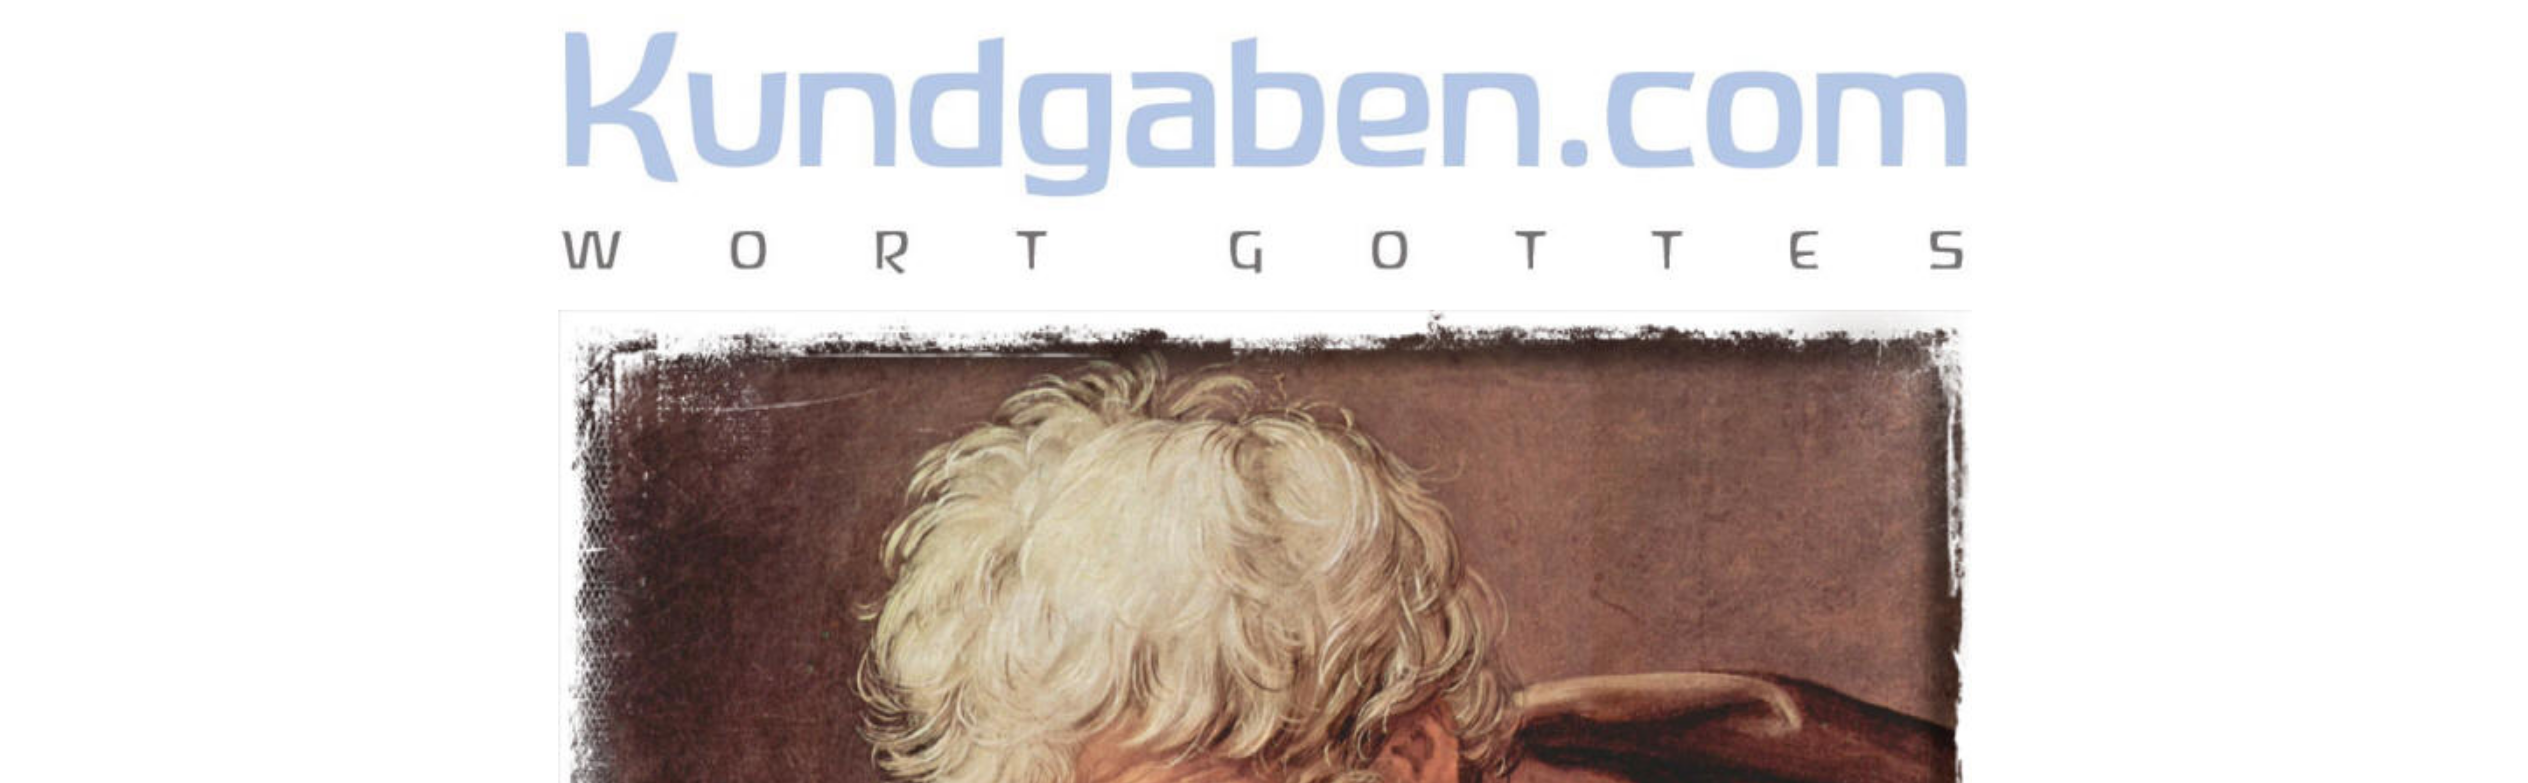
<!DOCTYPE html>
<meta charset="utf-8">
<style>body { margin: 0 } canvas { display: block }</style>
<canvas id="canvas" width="2528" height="783"></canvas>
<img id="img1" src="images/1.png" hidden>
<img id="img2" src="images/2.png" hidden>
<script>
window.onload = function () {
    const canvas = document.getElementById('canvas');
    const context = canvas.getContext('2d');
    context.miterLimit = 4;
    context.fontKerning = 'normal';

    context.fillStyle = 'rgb(255, 255, 255)';
    context.fillRect(0, 0, 2528, 783);
    context.drawImage(document.getElementById('img1'), 558, 14, 1414, 266);
    context.drawImage(document.getElementById('img2'), 558, 309, 1414, 474);
};
</script>
